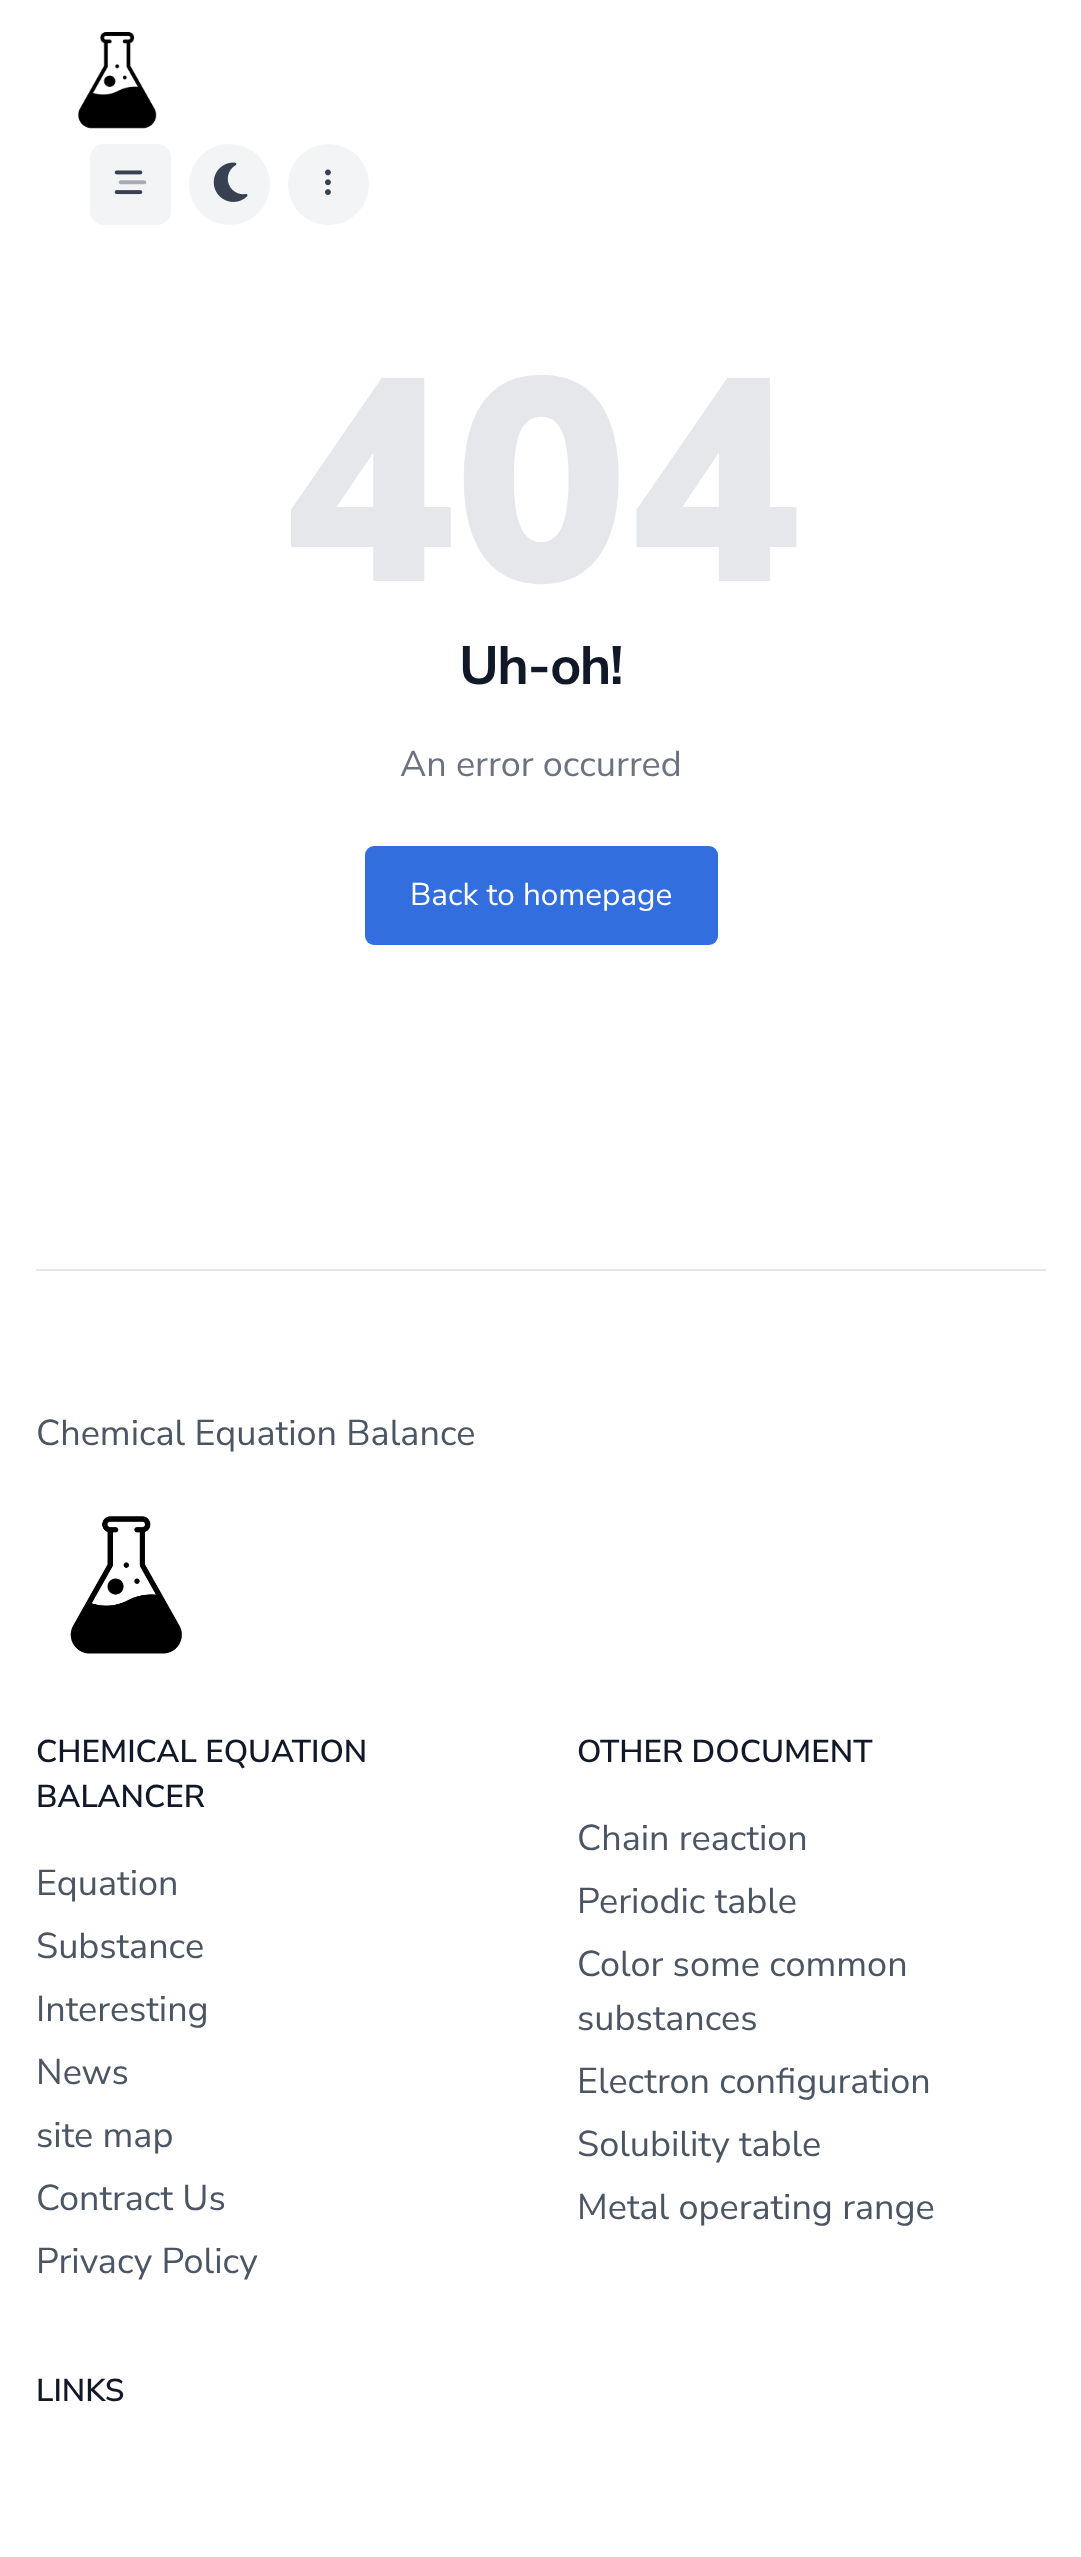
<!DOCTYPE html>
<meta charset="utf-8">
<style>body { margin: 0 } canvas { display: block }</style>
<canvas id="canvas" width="1081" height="2557"></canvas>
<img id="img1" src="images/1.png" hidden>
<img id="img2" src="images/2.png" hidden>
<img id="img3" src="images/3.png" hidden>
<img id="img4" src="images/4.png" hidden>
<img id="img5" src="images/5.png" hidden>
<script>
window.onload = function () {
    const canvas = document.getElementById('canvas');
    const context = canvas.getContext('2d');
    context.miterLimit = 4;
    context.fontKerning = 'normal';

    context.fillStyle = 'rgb(255, 255, 255)';
    context.fillRect(0, 0, 1081, 2557);
    context.drawImage(document.getElementById('img1'), 77, 32, 80, 97);
    context.fillStyle = 'rgb(243, 244, 246)';
    context.beginPath();
    context.roundRect(90, 144, 81, 81, 14);
    context.fill();
    context.drawImage(document.getElementById('img2'), 114, 170, 33, 25);
    context.beginPath();
    context.arc(229.5, 184.5, 40.5, 0, 2 * Math.PI);
    context.fill();
    context.drawImage(document.getElementById('img3'), 213, 162, 35, 40);
    context.beginPath();
    context.arc(328.5, 184.5, 40.5, 0, 2 * Math.PI);
    context.fill();
    context.drawImage(document.getElementById('img4'), 325, 169, 6, 26);
    context.fillStyle = 'rgb(50, 110, 222)';
    context.beginPath();
    context.roundRect(365, 846, 353, 99, 9);
    context.fill();
    context.fillStyle = 'rgb(229, 231, 235)';
    context.fillRect(36, 1269, 1010, 2);
    context.drawImage(document.getElementById('img5'), 70, 1516, 112, 138);
    context.font = '900 288px Nunito Sans';
    context.fillText('404', 282, 581);
    context.letterSpacing = '-1.5px';
    context.font = 'bold 54px Nunito Sans';
    context.fillStyle = 'rgb(17, 24, 39)';
    context.fillText('Uh-oh!', 459, 684);
    context.letterSpacing = '0px';
    context.font = '36px Nunito Sans';
    context.fillStyle = 'rgb(107, 114, 128)';
    context.fillText('An error occurred', 400, 776);
    context.font = '31.5px Nunito Sans';
    context.fillStyle = 'rgb(255, 255, 255)';
    context.fillText('Back to homepage', 410, 905);
    context.font = '36px Nunito Sans';
    context.fillStyle = 'rgb(75, 85, 99)';
    context.fillText('Chemical Equation Balance', 36, 1445);
    context.font = '600 31.5px Nunito Sans';
    context.fillStyle = 'rgb(17, 24, 39)';
    context.fillText('CHEMICAL EQUATION', 36, 1762);
    context.fillText('BALANCER', 36, 1807);
    context.font = '36px Nunito Sans';
    context.fillStyle = 'rgb(75, 85, 99)';
    context.fillText('Equation', 36, 1895);
    context.fillText('Substance', 36, 1958);
    context.fillText('Interesting', 36, 2021);
    context.fillText('News', 36, 2084);
    context.fillText('site map', 36, 2147);
    context.fillText('Contract Us', 36, 2210);
    context.fillText('Privacy Policy', 36, 2273);
    context.font = '600 31.5px Nunito Sans';
    context.fillStyle = 'rgb(17, 24, 39)';
    context.fillText('OTHER DOCUMENT', 577, 1762);
    context.font = '36px Nunito Sans';
    context.fillStyle = 'rgb(75, 85, 99)';
    context.fillText('Chain reaction', 577, 1850);
    context.fillText('Periodic table', 577, 1913);
    context.fillText('Color some common', 577, 1976);
    context.fillText('substances', 577, 2030);
    context.fillText('Electron configuration', 577, 2093);
    context.fillText('Solubility table', 577, 2156);
    context.fillText('Metal operating range', 577, 2219);
    context.font = '600 31.5px Nunito Sans';
    context.fillStyle = 'rgb(17, 24, 39)';
    context.fillText('LINKS', 36, 2401);
};
</script>
